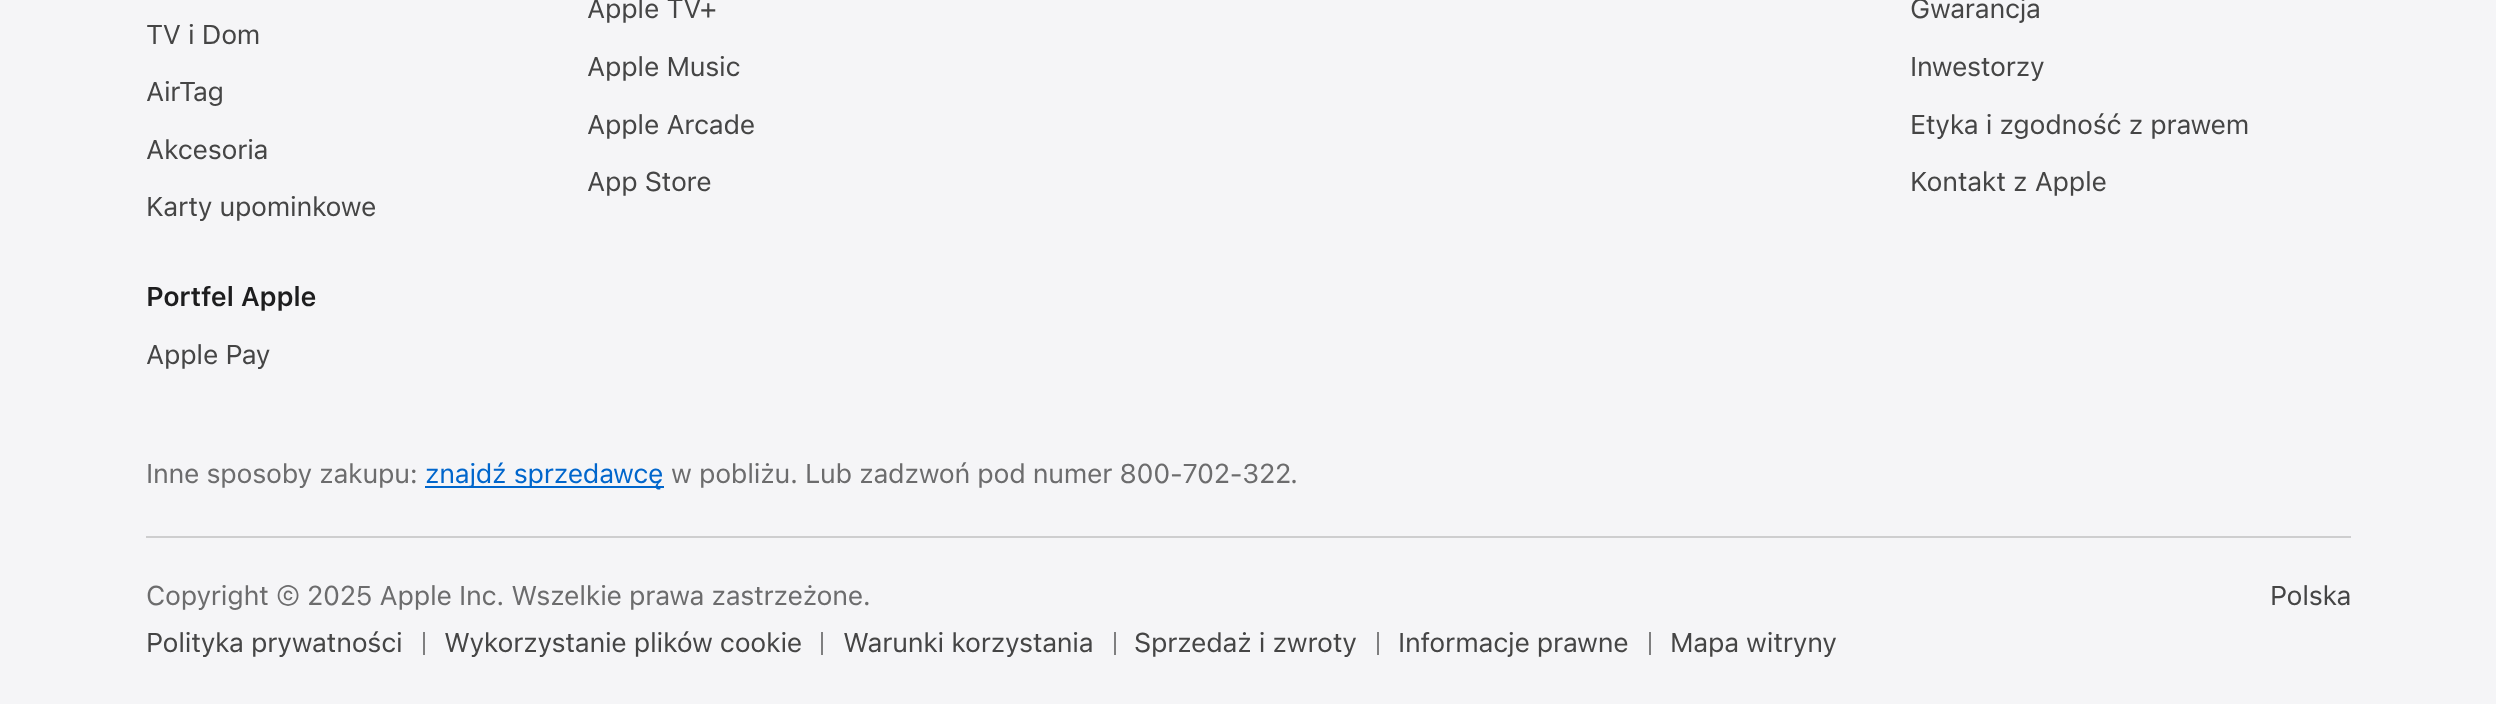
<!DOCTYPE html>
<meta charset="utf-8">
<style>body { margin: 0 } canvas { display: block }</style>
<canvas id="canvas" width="2496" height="706"></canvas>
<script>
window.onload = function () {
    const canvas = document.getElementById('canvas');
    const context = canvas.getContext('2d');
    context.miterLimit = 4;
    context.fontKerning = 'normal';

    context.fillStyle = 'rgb(255, 255, 255)';
    context.fillRect(0, 0, 2496, 706);
    context.fillStyle = 'rgb(245, 245, 247)';
    context.fillRect(0, 0, 2496, 704);
    context.fillStyle = 'rgb(206, 206, 207)';
    context.fillRect(146, 536, 2205, 2);
    context.fillStyle = 'rgb(0, 102, 204)';
    context.fillRect(425, 486, 239, 2);
    context.fillStyle = 'rgb(127, 127, 128)';
    context.fillRect(423, 632, 2, 23);
    context.fillRect(821, 632, 2, 23);
    context.fillRect(1114, 632, 2, 23);
    context.fillRect(1377, 632, 2, 23);
    context.fillRect(1649, 632, 2, 23);
    context.letterSpacing = '-0.27px';
    context.font = '27px SF Pro Text';
    context.fillStyle = 'rgb(69, 69, 69)';
    context.fillText('TV i Dom', 146, 44);
    context.fillText('AirTag', 146, 101);
    context.fillText('Akcesoria', 146, 159);
    context.fillText('Karty upominkowe', 146, 216);
    context.font = '600 27px SF Pro Text';
    context.fillStyle = 'rgb(29, 29, 30)';
    context.fillText('Portfel Apple', 146, 306);
    context.font = '27px SF Pro Text';
    context.fillStyle = 'rgb(69, 69, 69)';
    context.fillText('Apple Pay', 146, 364);
    context.fillText('Apple TV+', 587, 18);
    context.fillText('Apple Music', 587, 76);
    context.fillText('Apple Arcade', 587, 134);
    context.fillText('App Store', 587, 191);
    context.fillText('Gwarancja', 1910, 18);
    context.fillText('Inwestorzy', 1910, 76);
    context.fillText('Etyka i zgodność z prawem', 1910, 134);
    context.fillText('Kontakt z Apple', 1910, 191);
    context.fillStyle = 'rgb(108, 108, 109)';
    context.fillText('Inne sposoby zakupu:', 146, 483);
    context.fillStyle = 'rgb(0, 102, 204)';
    context.fillText('znajdź sprzedawcę', 425, 483);
    context.fillStyle = 'rgb(108, 108, 109)';
    context.fillText('w pobliżu. Lub zadzwoń pod numer 800‑702‑322', 671, 483);
    context.fillText('.', 1290, 483);
    context.fillText('Copyright © 2025 Apple Inc. Wszelkie prawa zastrzeżone.', 146, 605);
    context.fillStyle = 'rgb(69, 69, 69)';
    context.fillText('Polityka prywatności', 146, 652);
    context.fillText('Wykorzystanie plików cookie', 444, 652);
    context.fillText('Warunki korzystania', 843, 652);
    context.fillText('Sprzedaż i zwroty', 1134, 652);
    context.fillText('Informacje prawne', 1398, 652);
    context.fillText('Mapa witryny', 1670, 652);
    context.fillText('Polska', 2270, 605);
};
</script>
